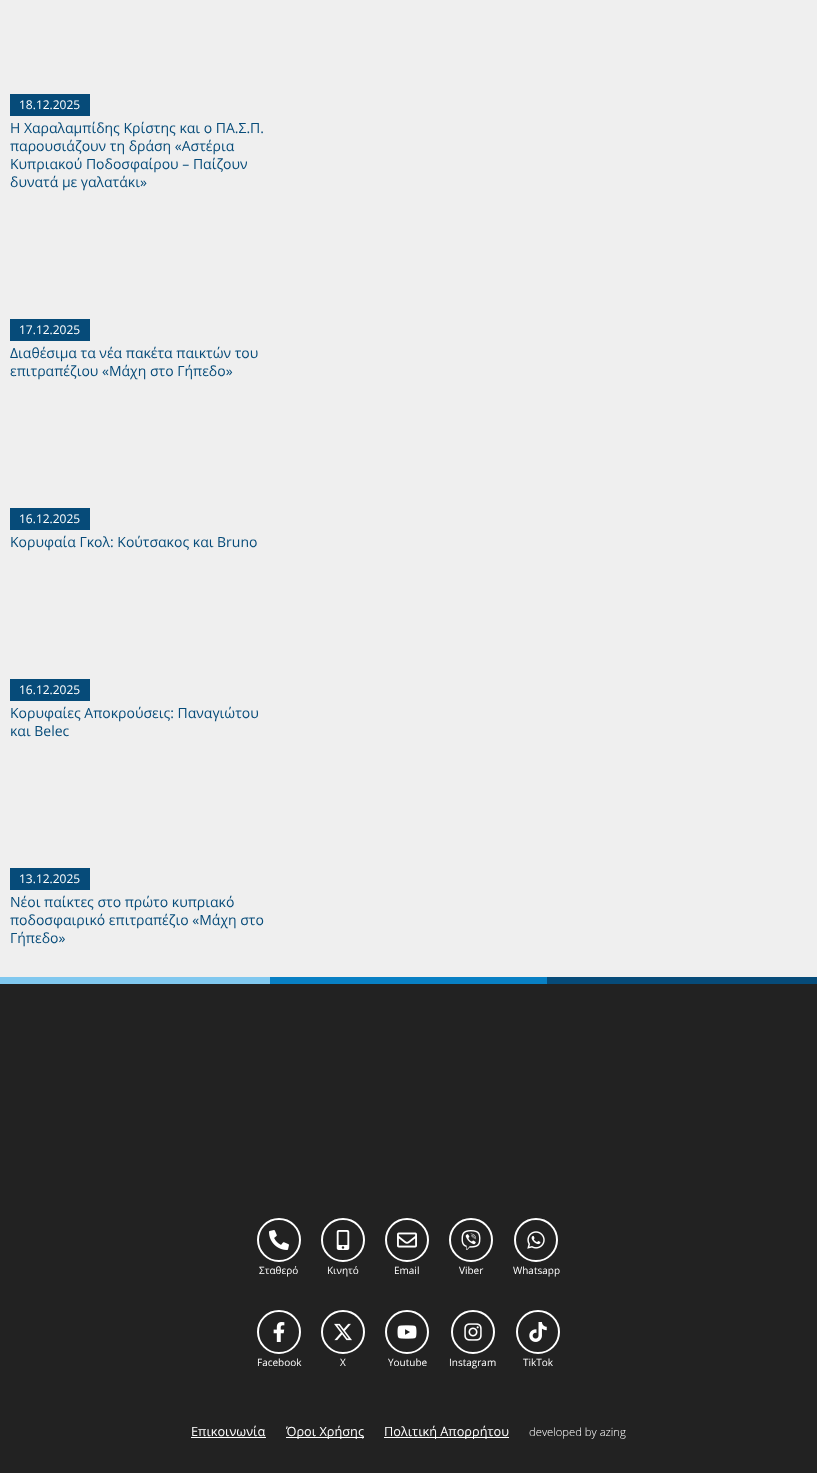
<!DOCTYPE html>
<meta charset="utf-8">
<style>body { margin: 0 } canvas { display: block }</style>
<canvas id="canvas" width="817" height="1473"></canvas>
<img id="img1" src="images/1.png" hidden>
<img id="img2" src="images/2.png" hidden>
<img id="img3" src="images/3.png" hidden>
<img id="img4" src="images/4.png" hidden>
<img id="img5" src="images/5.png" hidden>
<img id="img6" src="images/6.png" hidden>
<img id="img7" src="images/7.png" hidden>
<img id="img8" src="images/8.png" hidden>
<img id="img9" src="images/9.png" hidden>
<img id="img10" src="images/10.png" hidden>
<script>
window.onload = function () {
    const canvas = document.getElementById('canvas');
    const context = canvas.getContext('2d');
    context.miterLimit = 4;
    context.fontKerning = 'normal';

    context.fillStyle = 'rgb(239, 239, 239)';
    context.fillRect(0, 0, 817, 1473);
    context.fillStyle = 'rgb(6, 75, 121)';
    context.fillRect(10, 94, 80, 22);
    context.fillRect(10, 319, 80, 22);
    context.fillRect(10, 508, 80, 22);
    context.fillRect(10, 679, 80, 22);
    context.fillRect(10, 868, 80, 22);
    context.fillStyle = 'rgb(128, 200, 239)';
    context.fillRect(0, 977, 270, 7);
    context.fillStyle = 'rgb(8, 128, 196)';
    context.fillRect(270, 977, 277, 7);
    context.fillStyle = 'rgb(6, 75, 121)';
    context.fillRect(547, 977, 270, 7);
    context.fillStyle = 'rgb(34, 34, 34)';
    context.fillRect(0, 984, 817, 489);
    context.beginPath();
    context.arc(279, 1240, 21, 0, 2 * Math.PI);
    context.strokeStyle = 'rgb(255, 255, 255)';
    context.lineWidth = 2;
    context.stroke();
    context.drawImage(document.getElementById('img1'), 269, 1230, 20, 20);
    context.beginPath();
    context.arc(343, 1240, 21, 0, 2 * Math.PI);
    context.stroke();
    context.drawImage(document.getElementById('img2'), 336, 1230, 14, 20);
    context.beginPath();
    context.arc(407, 1240, 21, 0, 2 * Math.PI);
    context.stroke();
    context.drawImage(document.getElementById('img3'), 397, 1232, 20, 16);
    context.beginPath();
    context.arc(471, 1240, 21, 0, 2 * Math.PI);
    context.stroke();
    context.drawImage(document.getElementById('img4'), 461, 1230, 20, 20);
    context.beginPath();
    context.arc(536, 1240, 21, 0, 2 * Math.PI);
    context.stroke();
    context.drawImage(document.getElementById('img5'), 527, 1231, 18, 18);
    context.beginPath();
    context.arc(279, 1332, 21, 0, 2 * Math.PI);
    context.stroke();
    context.drawImage(document.getElementById('img6'), 273, 1322, 12, 20);
    context.beginPath();
    context.arc(343, 1332, 21, 0, 2 * Math.PI);
    context.stroke();
    context.drawImage(document.getElementById('img7'), 334, 1323, 18, 18);
    context.beginPath();
    context.arc(407, 1332, 21, 0, 2 * Math.PI);
    context.stroke();
    context.drawImage(document.getElementById('img8'), 397, 1325, 20, 14);
    context.beginPath();
    context.arc(473, 1332, 21, 0, 2 * Math.PI);
    context.stroke();
    context.drawImage(document.getElementById('img9'), 464, 1323, 18, 18);
    context.beginPath();
    context.arc(538, 1332, 21, 0, 2 * Math.PI);
    context.stroke();
    context.drawImage(document.getElementById('img10'), 529, 1322, 18, 20);
    context.fillStyle = 'rgb(255, 255, 255)';
    context.fillRect(191, 1437, 75, 1);
    context.fillRect(286, 1437, 78, 1);
    context.fillRect(384, 1437, 125, 1);
    context.font = '12px Open Sans';
    context.fillText('18.12.2025', 19, 109);
    context.font = '14px Open Sans';
    context.fillStyle = 'rgb(6, 75, 121)';
    context.fillText('H Xαραλαμπίδης Κρίστης και ο ΠΑ.Σ.Π.', 10, 133);
    context.fillText('παρουσιάζουν τη δράση «Αστέρια', 10, 151);
    context.fillText('Κυπριακού Ποδοσφαίρου – Παίζουν', 10, 169);
    context.fillText('δυνατά με γαλατάκι»', 10, 187);
    context.font = '12px Open Sans';
    context.fillStyle = 'rgb(255, 255, 255)';
    context.fillText('17.12.2025', 19, 334);
    context.font = '14px Open Sans';
    context.fillStyle = 'rgb(6, 75, 121)';
    context.fillText('Διαθέσιμα τα νέα πακέτα παικτών του', 10, 358);
    context.fillText('επιτραπέζιου «Μάχη στο Γήπεδο»', 10, 376);
    context.font = '12px Open Sans';
    context.fillStyle = 'rgb(255, 255, 255)';
    context.fillText('16.12.2025', 19, 523);
    context.font = '14px Open Sans';
    context.fillStyle = 'rgb(6, 75, 121)';
    context.fillText('Κορυφαία Γκολ: Κούτσακος και Bruno', 10, 547);
    context.font = '12px Open Sans';
    context.fillStyle = 'rgb(255, 255, 255)';
    context.fillText('16.12.2025', 19, 694);
    context.font = '14px Open Sans';
    context.fillStyle = 'rgb(6, 75, 121)';
    context.fillText('Κορυφαίες Αποκρούσεις: Παναγιώτου', 10, 718);
    context.fillText('και Belec', 10, 736);
    context.font = '12px Open Sans';
    context.fillStyle = 'rgb(255, 255, 255)';
    context.fillText('13.12.2025', 19, 883);
    context.font = '14px Open Sans';
    context.fillStyle = 'rgb(6, 75, 121)';
    context.fillText('Νέοι παίκτες στο πρώτο κυπριακό', 10, 907);
    context.fillText('ποδοσφαιρικό επιτραπέζιο «Μάχη στο', 10, 925);
    context.fillText('Γήπεδο»', 10, 943);
    context.font = '10px Open Sans';
    context.fillStyle = 'rgb(255, 255, 255)';
    context.fillText('Σταθερό', 259, 1274);
    context.fillText('Κινητό', 327, 1274);
    context.fillText('Email', 394, 1274);
    context.fillText('Viber', 459, 1274);
    context.fillText('Whatsapp', 513, 1274);
    context.fillText('Facebook', 257, 1366);
    context.fillText('X', 340, 1366);
    context.fillText('Youtube', 388, 1366);
    context.fillText('Instagram', 449, 1366);
    context.fillText('TikTok', 523, 1366);
    context.font = '12.75px Open Sans';
    context.fillText('Επικοινωνία', 191, 1436);
    context.fillText('Όροι Χρήσης', 286, 1436);
    context.fillText('Πολιτική Απορρήτου', 384, 1436);
    context.font = '300 11.25px Open Sans';
    context.fillText('developed by azing', 529, 1436);
};
</script>
